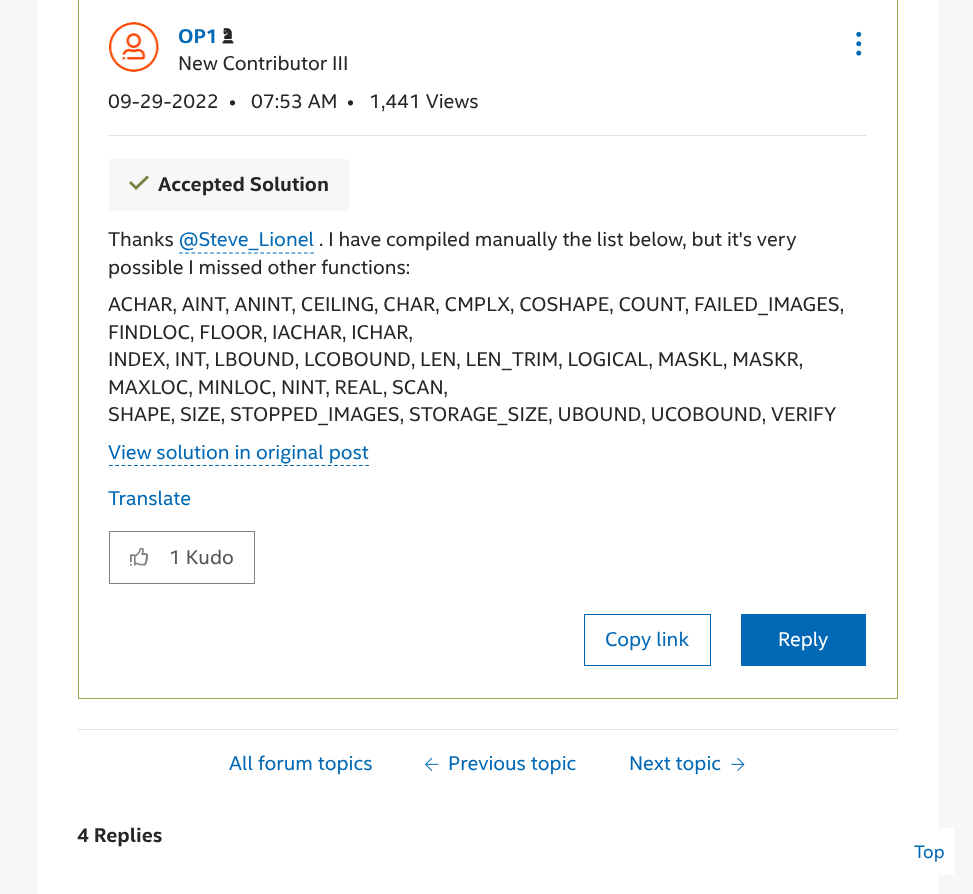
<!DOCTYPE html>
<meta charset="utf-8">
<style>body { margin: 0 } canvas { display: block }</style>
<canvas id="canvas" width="973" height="894"></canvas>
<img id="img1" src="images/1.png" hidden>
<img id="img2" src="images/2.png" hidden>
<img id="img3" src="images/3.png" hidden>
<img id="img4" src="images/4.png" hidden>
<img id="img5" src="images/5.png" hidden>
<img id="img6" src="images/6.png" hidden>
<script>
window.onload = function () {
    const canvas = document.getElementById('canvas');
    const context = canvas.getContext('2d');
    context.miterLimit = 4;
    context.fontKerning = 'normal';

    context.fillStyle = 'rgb(247, 247, 247)';
    context.fillRect(0, 0, 973, 894);
    context.fillStyle = 'rgb(255, 255, 255)';
    context.fillRect(38, 0, 900, 894);
    context.strokeStyle = 'rgb(139, 174, 70)';
    context.strokeRect(78.5, -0.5, 819, 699);
    context.fillStyle = 'rgb(224, 224, 224)';
    context.fillRect(109, 135, 757, 1);
    context.drawImage(document.getElementById('img1'), 108, 22, 51, 50);
    context.drawImage(document.getElementById('img2'), 222, 28, 12, 16);
    context.drawImage(document.getElementById('img3'), 856, 31, 6, 25);
    context.fillStyle = 'rgb(247, 247, 247)';
    context.fillRect(109, 159, 240, 52);
    context.fillStyle = 'rgb(112, 133, 65)';
    context.beginPath();
    context.moveTo(136, 190);
    context.lineTo(129, 183);
    context.lineTo(131, 181);
    context.lineTo(136, 186);
    context.lineTo(147, 175.5);
    context.lineTo(149, 177.5);
    context.closePath();
    context.fill();
    context.beginPath();
    context.moveTo(179, 253);
    context.lineTo(314, 253);
    context.strokeStyle = 'rgb(0, 104, 181)';
    context.lineWidth = 1.2;
    context.setLineDash([3.75, 2.5]);
    context.stroke();
    context.beginPath();
    context.moveTo(109, 465.5);
    context.lineTo(369, 465.5);
    context.stroke();
    context.strokeStyle = 'rgb(128, 128, 128)';
    context.lineWidth = 1;
    context.setLineDash([]);
    context.strokeRect(109.5, 531.5, 145, 52);
    context.drawImage(document.getElementById('img4'), 130, 548, 19, 18);
    context.strokeStyle = 'rgb(0, 104, 181)';
    context.strokeRect(584.5, 614.5, 126, 51);
    context.fillStyle = 'rgb(0, 104, 181)';
    context.fillRect(741, 614, 125, 52);
    context.fillStyle = 'rgb(224, 224, 224)';
    context.fillRect(78, 729, 820, 1);
    context.drawImage(document.getElementById('img5'), 425, 757, 14, 14);
    context.drawImage(document.getElementById('img6'), 731, 757, 14, 14);
    context.fillStyle = 'rgb(255, 255, 255)';
    context.fillRect(938, 828, 16, 47);
    context.font = 'bold 20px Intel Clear';
    context.fillStyle = 'rgb(0, 104, 181)';
    context.fillText('OP1', 178, 43);
    context.font = '20px Intel Clear';
    context.fillStyle = 'rgb(38, 38, 38)';
    context.fillText('New Contributor III', 178, 70);
    context.fillText('09-29-2022', 108, 108);
    context.fillText('•', 229, 108);
    context.fillText('07:53 AM', 251, 108);
    context.fillText('•', 347, 108);
    context.fillText('1,441 Views', 369, 108);
    context.font = 'bold 20px Intel Clear';
    context.fillText('Accepted Solution', 158, 191);
    context.font = '20px Intel Clear';
    context.fillText('Thanks', 108, 246);
    context.fillStyle = 'rgb(0, 104, 181)';
    context.fillText('@Steve_Lionel', 179, 246);
    context.fillStyle = 'rgb(38, 38, 38)';
    context.fillText('. I have compiled manually the list below, but it\'s very', 319, 246);
    context.fillText('possible I missed other functions:', 108, 274);
    context.fillText('ACHAR, AINT, ANINT, CEILING, CHAR, CMPLX, COSHAPE, COUNT, FAILED_IMAGES,', 108, 311);
    context.fillText('FINDLOC, FLOOR, IACHAR, ICHAR,', 108, 339);
    context.fillText('INDEX, INT, LBOUND, LCOBOUND, LEN, LEN_TRIM, LOGICAL, MASKL, MASKR,', 108, 366);
    context.fillText('MAXLOC, MINLOC, NINT, REAL, SCAN,', 108, 394);
    context.fillText('SHAPE, SIZE, STOPPED_IMAGES, STORAGE_SIZE, UBOUND, UCOBOUND, VERIFY', 108, 421);
    context.fillStyle = 'rgb(0, 104, 181)';
    context.fillText('View solution in original post', 108, 459);
    context.fillText('Translate', 108, 505);
    context.fillStyle = 'rgb(85, 85, 85)';
    context.fillText('1 Kudo', 169, 564);
    context.fillStyle = 'rgb(0, 104, 181)';
    context.fillText('Copy link', 605, 646);
    context.fillStyle = 'rgb(255, 255, 255)';
    context.fillText('Reply', 778, 646);
    context.fillStyle = 'rgb(0, 104, 181)';
    context.fillText('All forum topics', 229, 770);
    context.fillText('Previous topic', 448, 770);
    context.fillText('Next topic', 629, 770);
    context.font = 'bold 20px Intel Clear';
    context.fillStyle = 'rgb(38, 38, 38)';
    context.fillText('4 Replies', 77, 842);
    context.font = '18px Intel Clear';
    context.fillStyle = 'rgb(0, 104, 181)';
    context.fillText('Top', 914, 858);
};
</script>
